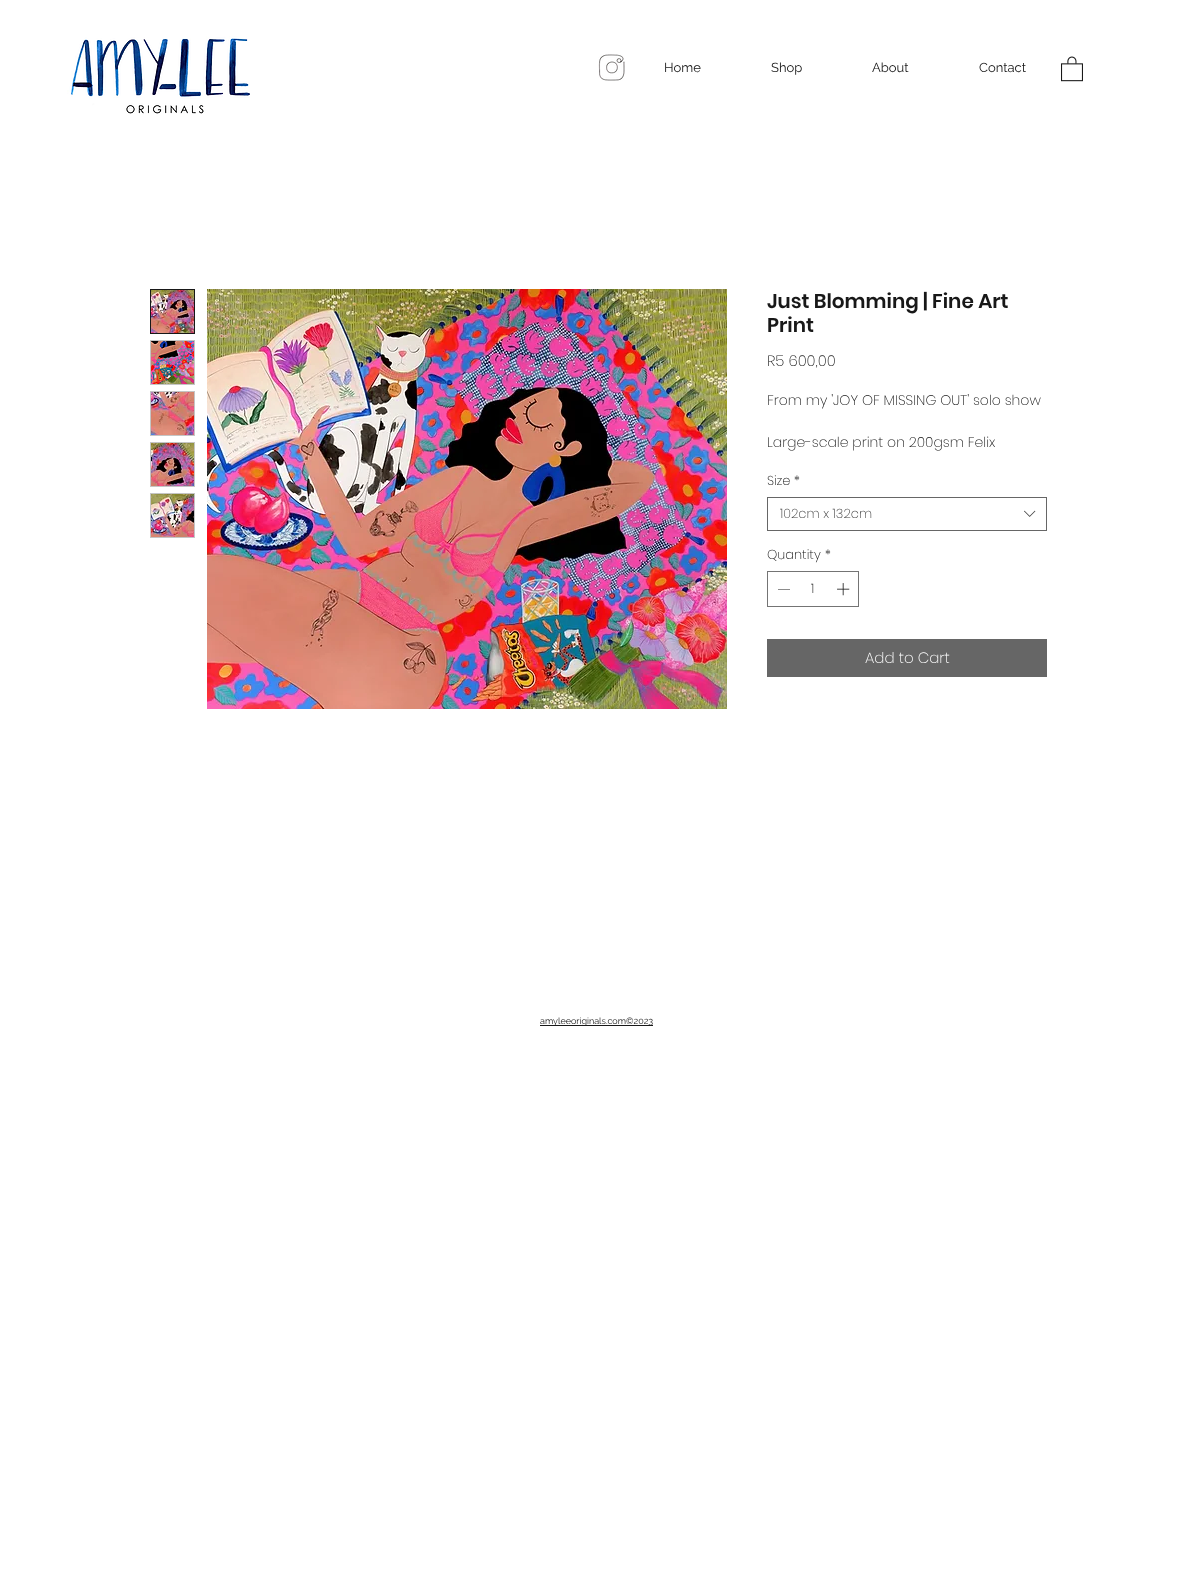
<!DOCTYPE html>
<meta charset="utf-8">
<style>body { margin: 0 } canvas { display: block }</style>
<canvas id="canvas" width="1194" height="1586"></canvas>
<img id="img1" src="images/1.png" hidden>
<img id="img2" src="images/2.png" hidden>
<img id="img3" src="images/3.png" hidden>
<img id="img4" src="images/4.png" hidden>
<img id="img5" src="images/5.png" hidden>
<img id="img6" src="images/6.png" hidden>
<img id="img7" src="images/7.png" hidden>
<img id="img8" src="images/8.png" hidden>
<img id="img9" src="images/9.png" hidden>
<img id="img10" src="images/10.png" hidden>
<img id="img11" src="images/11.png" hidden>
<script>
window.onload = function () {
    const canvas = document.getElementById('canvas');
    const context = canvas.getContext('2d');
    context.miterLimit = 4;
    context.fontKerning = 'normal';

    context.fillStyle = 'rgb(255, 255, 255)';
    context.fillRect(0, 0, 1194, 1586);
    context.drawImage(document.getElementById('img1'), 67, 36, 183, 78);
    context.drawImage(document.getElementById('img2'), 598, 54, 27, 27);
    context.drawImage(document.getElementById('img3'), 1061, 56, 22, 26);
    context.strokeStyle = 'rgb(24, 24, 24)';
    context.strokeRect(150.5, 289.5, 44, 44);
    context.drawImage(document.getElementById('img4'), 151, 290, 43, 43);
    context.fillStyle = 'rgb(197, 197, 197)';
    context.fillRect(150, 340, 45, 45);
    context.drawImage(document.getElementById('img5'), 151, 341, 43, 43);
    context.fillRect(150, 391, 45, 45);
    context.drawImage(document.getElementById('img6'), 151, 392, 43, 43);
    context.fillRect(150, 442, 45, 45);
    context.drawImage(document.getElementById('img7'), 151, 443, 43, 43);
    context.fillRect(150, 493, 45, 45);
    context.drawImage(document.getElementById('img8'), 151, 494, 43, 43);
    context.drawImage(document.getElementById('img9'), 207, 289, 520, 420);
    context.strokeStyle = 'rgb(102, 102, 102)';
    context.strokeRect(767.5, 497.5, 279, 33);
    context.drawImage(document.getElementById('img10'), 1024, 510, 12, 7);
    context.strokeStyle = 'rgb(116, 116, 116)';
    context.strokeRect(767.5, 571.5, 91, 35);
    context.fillStyle = 'rgb(24, 24, 24)';
    context.beginPath();
    context.moveTo(790, 589);
    context.lineTo(790, 589.5);
    context.lineTo(778, 589.5);
    context.lineTo(778, 589);
    context.closePath();
    context.fill('evenodd');
    context.drawImage(document.getElementById('img11'), 837, 583, 13, 13);
    context.fillStyle = 'rgb(102, 102, 102)';
    context.fillRect(767, 639, 280, 38);
    context.fillStyle = 'rgb(24, 24, 24)';
    context.fillRect(540, 1025, 113, 1);
    context.font = '13px Raleway';
    context.fillText('Home', 664, 72);
    context.fillText('Shop', 771, 72);
    context.fillText('About', 872, 72);
    context.fillText('Contact', 979, 72);
    context.font = '600 20px Poppins';
    context.fillText('Just Blomming | Fine Art', 767, 308);
    context.fillText('Print', 767, 332);
    context.font = '200 15px Poppins';
    context.fillText('R5 600,00', 767, 366);
    context.font = '200 14px Poppins';
    context.fillText('From my \'JOY OF MISSING OUT\' solo show', 767, 405);
    context.fillText('Large-scale print on 200gsm Felix', 767, 447);
    context.font = '200 13px Poppins';
    context.fillText('Size', 767, 485);
    context.fillText('*', 794, 485);
    context.fillStyle = 'rgb(68, 68, 68)';
    context.fillText('102cm x 132cm', 780, 518);
    context.fillStyle = 'rgb(24, 24, 24)';
    context.fillText('Quantity', 767, 559);
    context.fillText('*', 825, 559);
    context.fillText('1', 811, 593);
    context.font = '200 15px Poppins';
    context.fillStyle = 'rgb(255, 255, 255)';
    context.fillText('Add to Cart', 865, 663);
    context.font = '9px Raleway';
    context.fillStyle = 'rgb(24, 24, 24)';
    context.fillText('amyleeoriginals.com©2023', 540, 1024);
};
</script>
